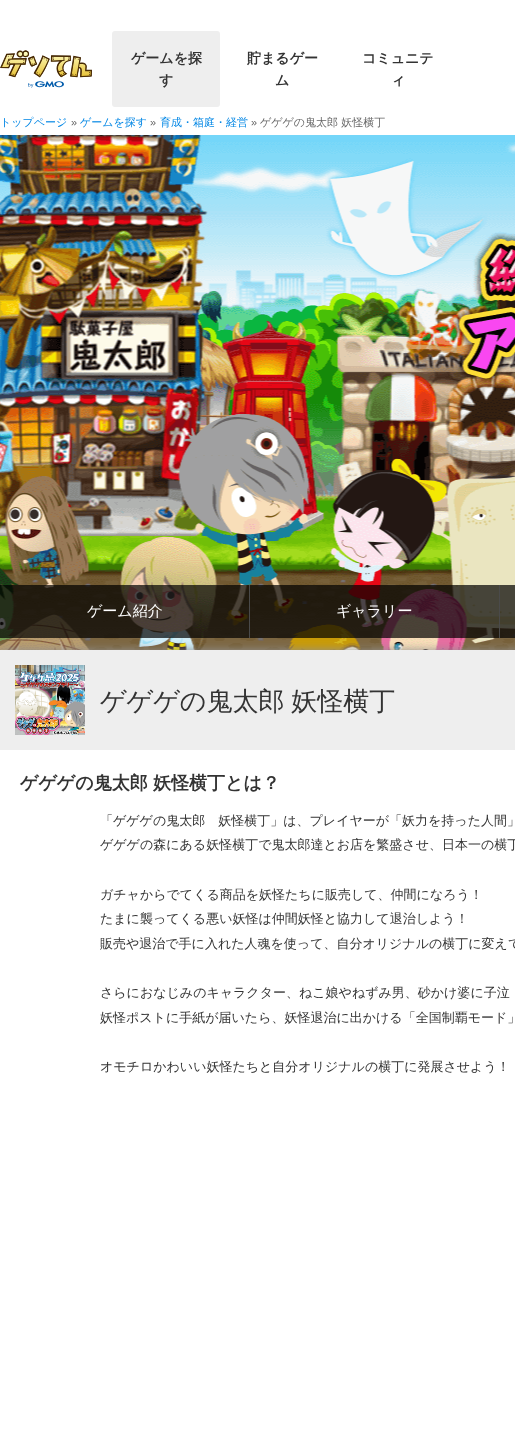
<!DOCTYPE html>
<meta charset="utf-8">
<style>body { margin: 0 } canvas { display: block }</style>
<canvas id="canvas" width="515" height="1455"></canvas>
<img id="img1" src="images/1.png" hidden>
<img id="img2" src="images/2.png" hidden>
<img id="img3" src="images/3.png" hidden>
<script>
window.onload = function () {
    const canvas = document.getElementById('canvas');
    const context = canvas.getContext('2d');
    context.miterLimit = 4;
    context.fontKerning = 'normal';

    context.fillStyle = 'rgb(255, 255, 255)';
    context.fillRect(0, 0, 515, 1455);
    context.drawImage(document.getElementById('img1'), 0, 50, 92, 38);
    context.fillStyle = 'rgb(238, 238, 238)';
    context.beginPath();
    context.roundRect(112, 31, 108, 76, 3);
    context.fill();
    context.drawImage(document.getElementById('img2'), 0, 135, 515, 515);
    context.fillStyle = 'rgb(145, 145, 145)';
    context.filter = 'blur(4px)';
    context.beginPath();
    context.rect(0, 650, 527, 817);
    context.fill();
    context.filter = 'none';
    context.fillStyle = 'rgba(0, 0, 0, 0.7)';
    context.fillRect(0, 585, 249, 53);
    context.fillStyle = 'rgb(74, 74, 74)';
    context.fillRect(249, 585, 1, 53);
    context.fillStyle = 'rgba(0, 0, 0, 0.7)';
    context.fillRect(250, 585, 249, 53);
    context.fillStyle = 'rgb(74, 74, 74)';
    context.fillRect(499, 585, 1, 53);
    context.fillStyle = 'rgba(0, 0, 0, 0.7)';
    context.fillRect(500, 585, 15, 53);
    context.fillStyle = 'rgb(238, 238, 238)';
    context.fillRect(0, 650, 515, 100);
    context.drawImage(document.getElementById('img3'), 15, 665, 70, 70);
    context.fillStyle = 'rgb(255, 255, 255)';
    context.fillRect(0, 750, 515, 705);
    context.font = 'bold 14px WenQuanYi Zen Hei';
    context.fillStyle = 'rgb(51, 51, 51)';
    context.fillText('ゲームを探', 131, 63);
    context.fillText('す', 159, 85);
    context.fillText('貯まるゲー', 247, 63);
    context.fillText('ム', 275, 85);
    context.fillText('コミュニテ', 362, 63);
    context.fillText('ィ', 391, 85);
    context.font = '500 11px WenQuanYi Zen Hei';
    context.fillStyle = 'rgb(0, 134, 229)';
    context.fillText('トップページ', 0, 126);
    context.font = '11px Liberation Sans';
    context.fillStyle = 'rgb(102, 102, 102)';
    context.fillText('»', 71, 126);
    context.font = '500 11px WenQuanYi Zen Hei';
    context.fillStyle = 'rgb(0, 134, 229)';
    context.fillText('ゲームを探す', 80, 126);
    context.font = '11px Liberation Sans';
    context.fillStyle = 'rgb(102, 102, 102)';
    context.fillText('»', 150, 126);
    context.font = '500 11px WenQuanYi Zen Hei';
    context.fillStyle = 'rgb(0, 134, 229)';
    context.fillText('育成・箱庭・経営', 160, 126);
    context.font = '11px Liberation Sans';
    context.fillStyle = 'rgb(102, 102, 102)';
    context.fillText('»', 251, 126);
    context.font = '500 11px WenQuanYi Zen Hei';
    context.fillText('ゲゲゲの鬼太郎 妖怪横丁', 260, 126);
    context.font = '500 15px WenQuanYi Zen Hei';
    context.fillStyle = 'rgb(255, 255, 255)';
    context.fillText('ゲーム紹介', 87, 616);
    context.fillText('ギャラリー', 336, 616);
    context.wordSpacing = '-1px';
    context.font = '500 26px WenQuanYi Zen Hei';
    context.fillStyle = 'rgb(51, 51, 51)';
    context.fillText('ゲゲゲの鬼太郎 妖怪横丁', 100, 710);
    context.wordSpacing = '0px';
    context.font = 'bold 18px WenQuanYi Zen Hei';
    context.fillText('ゲゲゲの鬼太郎 妖怪横丁とは？', 20, 789);
    context.font = '500 13px WenQuanYi Zen Hei';
    context.fillText('「ゲゲゲの鬼太郎　妖怪横丁」は、プレイヤーが「妖力を持った人間」', 100, 825);
    context.fillText('ゲゲゲの森にある妖怪横丁で鬼太郎達とお店を繁盛させ、日本一の横丁', 100, 849);
    context.fillText('ガチャからでてくる商品を妖怪たちに販売して、仲間になろう！', 100, 899);
    context.fillText('たまに襲ってくる悪い妖怪は仲間妖怪と協力して退治しよう！', 100, 923);
    context.fillText('販売や退治で手に入れた人魂を使って、自分オリジナルの横丁に変えて', 100, 948);
    context.fillText('さらにおなじみのキャラクター、ねこ娘やねずみ男、砂かけ婆に子泣', 100, 997);
    context.fillText('妖怪ポストに手紙が届いたら、妖怪退治に出かける「全国制覇モード」', 100, 1022);
    context.fillText('オモチロかわいい妖怪たちと自分オリジナルの横丁に発展させよう！', 100, 1071);
};
</script>
